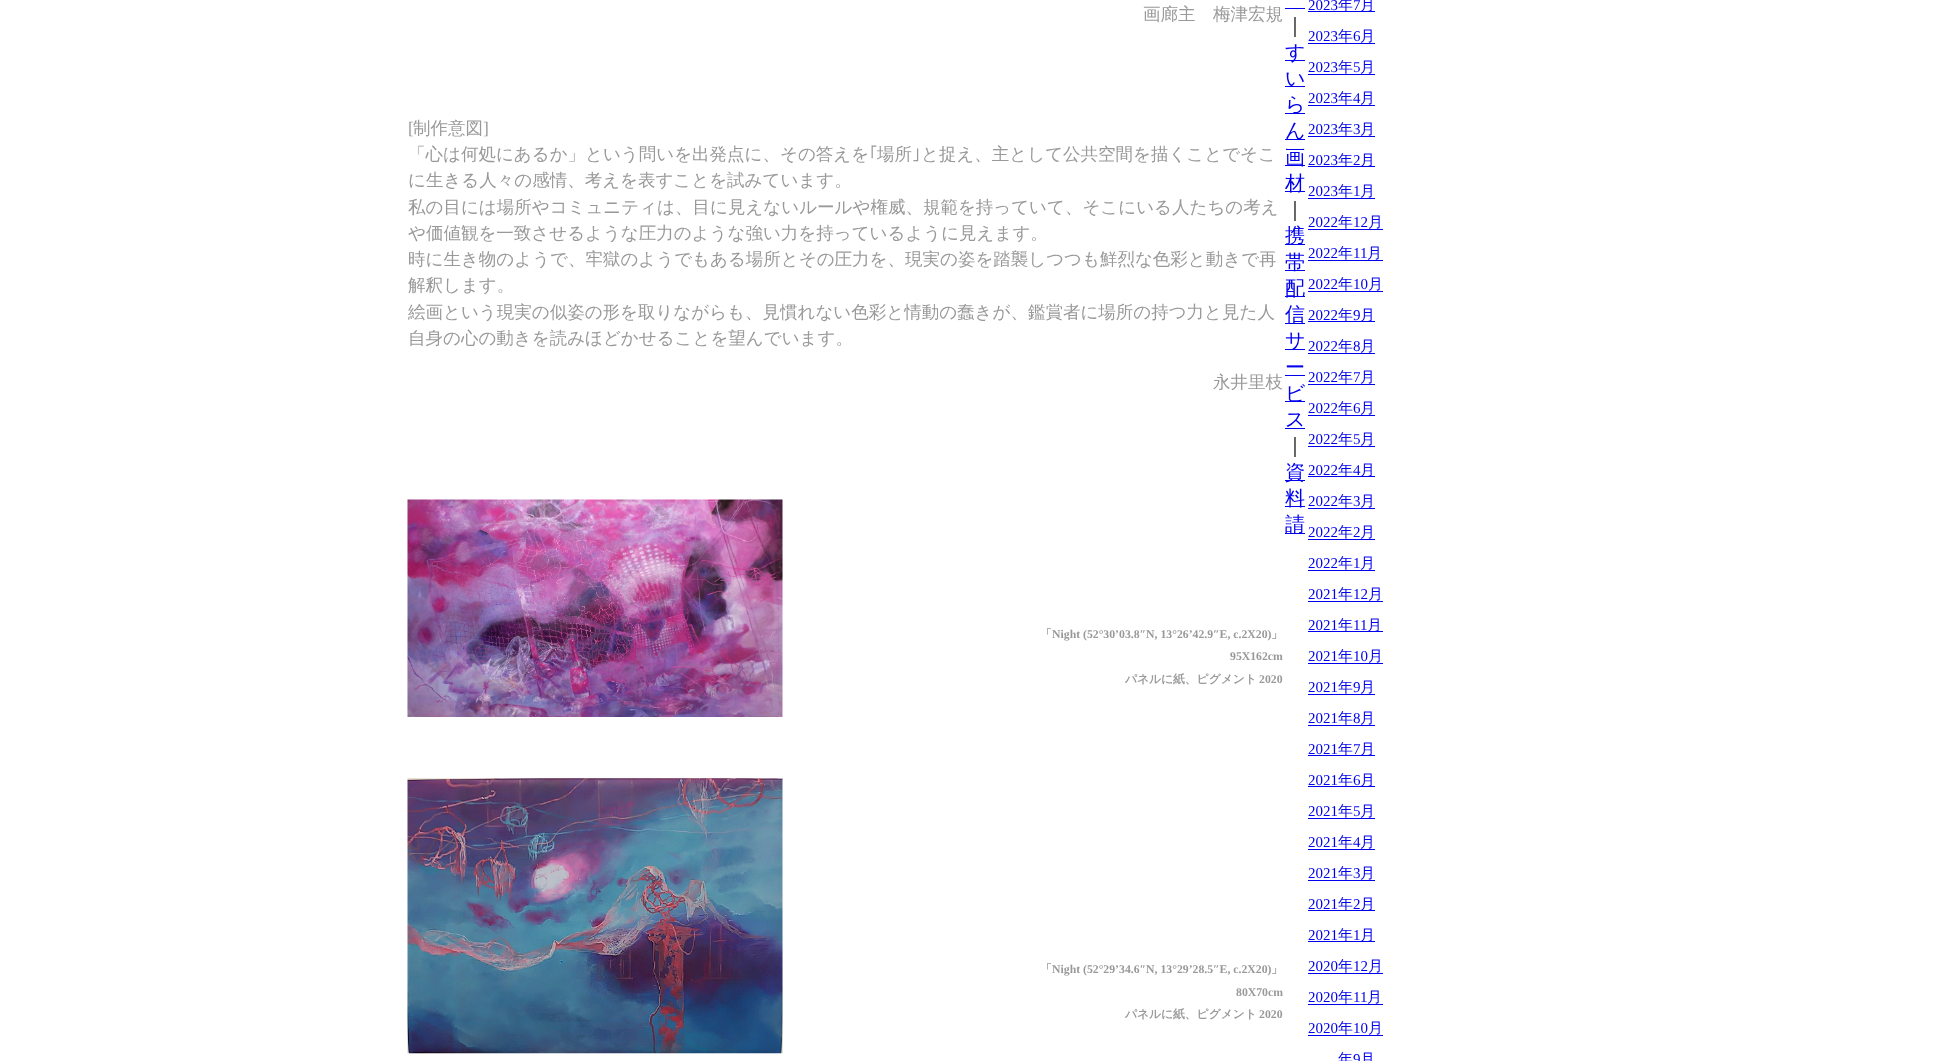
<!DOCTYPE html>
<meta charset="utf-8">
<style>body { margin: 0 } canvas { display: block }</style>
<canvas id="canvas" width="1940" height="1061"></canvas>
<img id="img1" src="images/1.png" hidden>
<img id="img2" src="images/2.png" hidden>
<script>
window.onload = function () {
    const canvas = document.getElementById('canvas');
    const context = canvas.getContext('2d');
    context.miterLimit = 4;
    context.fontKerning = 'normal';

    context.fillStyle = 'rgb(255, 255, 255)';
    context.fillRect(0, 0, 1940, 1061);
    context.drawImage(document.getElementById('img1'), 407, 499, 376, 218);
    context.drawImage(document.getElementById('img2'), 407, 778, 376, 276);
    context.fillStyle = 'rgb(0, 0, 238)';
    context.fillRect(1308, 11, 67, 1);
    context.fillRect(1308, 43, 67, 1);
    context.fillRect(1308, 74, 67, 1);
    context.fillRect(1308, 105, 67, 1);
    context.fillRect(1308, 136, 67, 1);
    context.fillRect(1308, 166, 67, 1);
    context.fillRect(1308, 198, 67, 1);
    context.fillRect(1308, 229, 75, 1);
    context.fillRect(1308, 260, 75, 1);
    context.fillRect(1308, 291, 75, 1);
    context.fillRect(1308, 321, 67, 1);
    context.fillRect(1308, 353, 67, 1);
    context.fillRect(1308, 384, 67, 1);
    context.fillRect(1308, 415, 67, 1);
    context.fillRect(1308, 446, 67, 1);
    context.fillRect(1308, 476, 67, 1);
    context.fillRect(1308, 508, 67, 1);
    context.fillRect(1308, 539, 67, 1);
    context.fillRect(1308, 570, 67, 1);
    context.fillRect(1308, 601, 75, 1);
    context.fillRect(1308, 631, 75, 1);
    context.fillRect(1308, 663, 75, 1);
    context.fillRect(1308, 694, 67, 1);
    context.fillRect(1308, 725, 67, 1);
    context.fillRect(1308, 755, 67, 1);
    context.fillRect(1308, 786, 67, 1);
    context.fillRect(1308, 818, 67, 1);
    context.fillRect(1308, 849, 67, 1);
    context.fillRect(1308, 880, 67, 1);
    context.fillRect(1308, 910, 67, 1);
    context.fillRect(1308, 941, 67, 1);
    context.fillRect(1308, 973, 75, 1);
    context.fillRect(1308, 1004, 75, 1);
    context.fillRect(1308, 1035, 75, 1);
    context.fillRect(1285, 8, 20, 1);
    context.fillRect(1285, 60, 20, 1);
    context.fillRect(1285, 86, 20, 1);
    context.fillRect(1285, 113, 20, 1);
    context.fillRect(1285, 139, 20, 1);
    context.fillRect(1285, 165, 20, 1);
    context.fillRect(1285, 191, 20, 1);
    context.fillRect(1285, 244, 20, 1);
    context.fillRect(1285, 270, 20, 1);
    context.fillRect(1285, 296, 20, 1);
    context.fillRect(1285, 323, 20, 1);
    context.fillRect(1285, 349, 20, 1);
    context.fillRect(1285, 375, 20, 1);
    context.fillRect(1285, 401, 20, 1);
    context.fillRect(1285, 428, 20, 1);
    context.fillRect(1285, 480, 20, 1);
    context.fillRect(1285, 506, 20, 1);
    context.fillRect(1285, 533, 20, 1);
    context.font = '500 17.5px WenQuanYi Zen Hei';
    context.fillStyle = 'rgb(153, 153, 153)';
    context.fillText('画廊主　梅津宏規', 1143, 20);
    context.font = '17.5px Liberation Serif';
    context.fillText('[', 408, 134);
    context.font = '500 17.5px WenQuanYi Zen Hei';
    context.fillText('制作意図', 413, 134);
    context.font = '17.5px Liberation Serif';
    context.fillText(']', 483, 134);
    context.font = '500 17.5px WenQuanYi Zen Hei';
    context.fillText('「心は何処にあるか」という問いを出発点に、その答えを', 408, 160);
    context.font = '17.5px IPAGothic';
    context.fillText('｢', 869, 160);
    context.font = '500 17.5px WenQuanYi Zen Hei';
    context.fillText('場所', 877, 160);
    context.font = '17.5px IPAGothic';
    context.fillText('｣', 912, 160);
    context.font = '500 17.5px WenQuanYi Zen Hei';
    context.fillText('と捉え、主として公共空間を描くことでそこ', 921, 160);
    context.fillText('に生きる人々の感情、考えを表すことを試みています。', 408, 186);
    context.fillText('私の目には場所やコミュニティは、目に見えないルールや権威、規範を持っていて、そこにいる人たちの考え', 408, 213);
    context.fillText('や価値観を一致させるような圧力のような強い力を持っているように見えます。', 408, 239);
    context.fillText('時に生き物のようで、牢獄のようでもある場所とその圧力を、現実の姿を踏襲しつつも鮮烈な色彩と動きで再', 408, 265);
    context.fillText('解釈します。', 408, 291);
    context.fillText('絵画という現実の似姿の形を取りながらも、見慣れない色彩と情動の蠢きが、鑑賞者に場所の持つ力と見た人', 408, 318);
    context.fillText('自身の心の動きを読みほどかせることを望んでいます。', 408, 344);
    context.fillText('永井里枝', 1213, 388);
    context.font = 'bold 11.75px WenQuanYi Zen Hei';
    context.fillText('「', 1040, 638);
    context.font = 'bold 11.75px Liberation Serif';
    context.fillText('Night (52°30’03.8″N, 13°26’42.9″E, c.2X20)', 1052, 638);
    context.font = 'bold 11.75px WenQuanYi Zen Hei';
    context.fillText('」', 1271, 638);
    context.font = 'bold 11.75px Liberation Serif';
    context.fillText('95X162cm', 1230, 660);
    context.font = 'bold 11.75px WenQuanYi Zen Hei';
    context.fillText('パネルに紙、ピグメント', 1125, 683);
    context.font = 'bold 11.75px Liberation Serif';
    context.fillText('2020', 1259, 683);
    context.font = 'bold 11.75px WenQuanYi Zen Hei';
    context.fillText('「', 1040, 973);
    context.font = 'bold 11.75px Liberation Serif';
    context.fillText('Night (52°29’34.6″N, 13°29’28.5″E, c.2X20)', 1052, 973);
    context.font = 'bold 11.75px WenQuanYi Zen Hei';
    context.fillText('」', 1271, 973);
    context.font = 'bold 11.75px Liberation Serif';
    context.fillText('80X70cm', 1236, 996);
    context.font = 'bold 11.75px WenQuanYi Zen Hei';
    context.fillText('パネルに紙、ピグメント', 1125, 1018);
    context.font = 'bold 11.75px Liberation Serif';
    context.fillText('2020', 1259, 1018);
    context.font = '15px Liberation Serif';
    context.fillStyle = 'rgb(0, 0, 238)';
    context.fillText('2023', 1308, 10);
    context.font = '500 15px WenQuanYi Zen Hei';
    context.fillText('年', 1338, 10);
    context.font = '15px Liberation Serif';
    context.fillText('7', 1353, 10);
    context.font = '500 15px WenQuanYi Zen Hei';
    context.fillText('月', 1360, 10);
    context.font = '15px Liberation Serif';
    context.fillText('2023', 1308, 41);
    context.font = '500 15px WenQuanYi Zen Hei';
    context.fillText('年', 1338, 41);
    context.font = '15px Liberation Serif';
    context.fillText('6', 1353, 41);
    context.font = '500 15px WenQuanYi Zen Hei';
    context.fillText('月', 1360, 41);
    context.font = '15px Liberation Serif';
    context.fillText('2023', 1308, 72);
    context.font = '500 15px WenQuanYi Zen Hei';
    context.fillText('年', 1338, 72);
    context.font = '15px Liberation Serif';
    context.fillText('5', 1353, 72);
    context.font = '500 15px WenQuanYi Zen Hei';
    context.fillText('月', 1360, 72);
    context.font = '15px Liberation Serif';
    context.fillText('2023', 1308, 103);
    context.font = '500 15px WenQuanYi Zen Hei';
    context.fillText('年', 1338, 103);
    context.font = '15px Liberation Serif';
    context.fillText('4', 1353, 103);
    context.font = '500 15px WenQuanYi Zen Hei';
    context.fillText('月', 1360, 103);
    context.font = '15px Liberation Serif';
    context.fillText('2023', 1308, 134);
    context.font = '500 15px WenQuanYi Zen Hei';
    context.fillText('年', 1338, 134);
    context.font = '15px Liberation Serif';
    context.fillText('3', 1353, 134);
    context.font = '500 15px WenQuanYi Zen Hei';
    context.fillText('月', 1360, 134);
    context.font = '15px Liberation Serif';
    context.fillText('2023', 1308, 165);
    context.font = '500 15px WenQuanYi Zen Hei';
    context.fillText('年', 1338, 165);
    context.font = '15px Liberation Serif';
    context.fillText('2', 1353, 165);
    context.font = '500 15px WenQuanYi Zen Hei';
    context.fillText('月', 1360, 165);
    context.font = '15px Liberation Serif';
    context.fillText('2023', 1308, 196);
    context.font = '500 15px WenQuanYi Zen Hei';
    context.fillText('年', 1338, 196);
    context.font = '15px Liberation Serif';
    context.fillText('1', 1353, 196);
    context.font = '500 15px WenQuanYi Zen Hei';
    context.fillText('月', 1360, 196);
    context.font = '15px Liberation Serif';
    context.fillText('2022', 1308, 227);
    context.font = '500 15px WenQuanYi Zen Hei';
    context.fillText('年', 1338, 227);
    context.font = '15px Liberation Serif';
    context.fillText('12', 1353, 227);
    context.font = '500 15px WenQuanYi Zen Hei';
    context.fillText('月', 1368, 227);
    context.font = '15px Liberation Serif';
    context.fillText('2022', 1308, 258);
    context.font = '500 15px WenQuanYi Zen Hei';
    context.fillText('年', 1338, 258);
    context.font = '15px Liberation Serif';
    context.fillText('11', 1353, 258);
    context.font = '500 15px WenQuanYi Zen Hei';
    context.fillText('月', 1367, 258);
    context.font = '15px Liberation Serif';
    context.fillText('2022', 1308, 289);
    context.font = '500 15px WenQuanYi Zen Hei';
    context.fillText('年', 1338, 289);
    context.font = '15px Liberation Serif';
    context.fillText('10', 1353, 289);
    context.font = '500 15px WenQuanYi Zen Hei';
    context.fillText('月', 1368, 289);
    context.font = '15px Liberation Serif';
    context.fillText('2022', 1308, 320);
    context.font = '500 15px WenQuanYi Zen Hei';
    context.fillText('年', 1338, 320);
    context.font = '15px Liberation Serif';
    context.fillText('9', 1353, 320);
    context.font = '500 15px WenQuanYi Zen Hei';
    context.fillText('月', 1360, 320);
    context.font = '15px Liberation Serif';
    context.fillText('2022', 1308, 351);
    context.font = '500 15px WenQuanYi Zen Hei';
    context.fillText('年', 1338, 351);
    context.font = '15px Liberation Serif';
    context.fillText('8', 1353, 351);
    context.font = '500 15px WenQuanYi Zen Hei';
    context.fillText('月', 1360, 351);
    context.font = '15px Liberation Serif';
    context.fillText('2022', 1308, 382);
    context.font = '500 15px WenQuanYi Zen Hei';
    context.fillText('年', 1338, 382);
    context.font = '15px Liberation Serif';
    context.fillText('7', 1353, 382);
    context.font = '500 15px WenQuanYi Zen Hei';
    context.fillText('月', 1360, 382);
    context.font = '15px Liberation Serif';
    context.fillText('2022', 1308, 413);
    context.font = '500 15px WenQuanYi Zen Hei';
    context.fillText('年', 1338, 413);
    context.font = '15px Liberation Serif';
    context.fillText('6', 1353, 413);
    context.font = '500 15px WenQuanYi Zen Hei';
    context.fillText('月', 1360, 413);
    context.font = '15px Liberation Serif';
    context.fillText('2022', 1308, 444);
    context.font = '500 15px WenQuanYi Zen Hei';
    context.fillText('年', 1338, 444);
    context.font = '15px Liberation Serif';
    context.fillText('5', 1353, 444);
    context.font = '500 15px WenQuanYi Zen Hei';
    context.fillText('月', 1360, 444);
    context.font = '15px Liberation Serif';
    context.fillText('2022', 1308, 475);
    context.font = '500 15px WenQuanYi Zen Hei';
    context.fillText('年', 1338, 475);
    context.font = '15px Liberation Serif';
    context.fillText('4', 1353, 475);
    context.font = '500 15px WenQuanYi Zen Hei';
    context.fillText('月', 1360, 475);
    context.font = '15px Liberation Serif';
    context.fillText('2022', 1308, 506);
    context.font = '500 15px WenQuanYi Zen Hei';
    context.fillText('年', 1338, 506);
    context.font = '15px Liberation Serif';
    context.fillText('3', 1353, 506);
    context.font = '500 15px WenQuanYi Zen Hei';
    context.fillText('月', 1360, 506);
    context.font = '15px Liberation Serif';
    context.fillText('2022', 1308, 537);
    context.font = '500 15px WenQuanYi Zen Hei';
    context.fillText('年', 1338, 537);
    context.font = '15px Liberation Serif';
    context.fillText('2', 1353, 537);
    context.font = '500 15px WenQuanYi Zen Hei';
    context.fillText('月', 1360, 537);
    context.font = '15px Liberation Serif';
    context.fillText('2022', 1308, 568);
    context.font = '500 15px WenQuanYi Zen Hei';
    context.fillText('年', 1338, 568);
    context.font = '15px Liberation Serif';
    context.fillText('1', 1353, 568);
    context.font = '500 15px WenQuanYi Zen Hei';
    context.fillText('月', 1360, 568);
    context.font = '15px Liberation Serif';
    context.fillText('2021', 1308, 599);
    context.font = '500 15px WenQuanYi Zen Hei';
    context.fillText('年', 1338, 599);
    context.font = '15px Liberation Serif';
    context.fillText('12', 1353, 599);
    context.font = '500 15px WenQuanYi Zen Hei';
    context.fillText('月', 1368, 599);
    context.font = '15px Liberation Serif';
    context.fillText('2021', 1308, 630);
    context.font = '500 15px WenQuanYi Zen Hei';
    context.fillText('年', 1338, 630);
    context.font = '15px Liberation Serif';
    context.fillText('11', 1353, 630);
    context.font = '500 15px WenQuanYi Zen Hei';
    context.fillText('月', 1367, 630);
    context.font = '15px Liberation Serif';
    context.fillText('2021', 1308, 661);
    context.font = '500 15px WenQuanYi Zen Hei';
    context.fillText('年', 1338, 661);
    context.font = '15px Liberation Serif';
    context.fillText('10', 1353, 661);
    context.font = '500 15px WenQuanYi Zen Hei';
    context.fillText('月', 1368, 661);
    context.font = '15px Liberation Serif';
    context.fillText('2021', 1308, 692);
    context.font = '500 15px WenQuanYi Zen Hei';
    context.fillText('年', 1338, 692);
    context.font = '15px Liberation Serif';
    context.fillText('9', 1353, 692);
    context.font = '500 15px WenQuanYi Zen Hei';
    context.fillText('月', 1360, 692);
    context.font = '15px Liberation Serif';
    context.fillText('2021', 1308, 723);
    context.font = '500 15px WenQuanYi Zen Hei';
    context.fillText('年', 1338, 723);
    context.font = '15px Liberation Serif';
    context.fillText('8', 1353, 723);
    context.font = '500 15px WenQuanYi Zen Hei';
    context.fillText('月', 1360, 723);
    context.font = '15px Liberation Serif';
    context.fillText('2021', 1308, 754);
    context.font = '500 15px WenQuanYi Zen Hei';
    context.fillText('年', 1338, 754);
    context.font = '15px Liberation Serif';
    context.fillText('7', 1353, 754);
    context.font = '500 15px WenQuanYi Zen Hei';
    context.fillText('月', 1360, 754);
    context.font = '15px Liberation Serif';
    context.fillText('2021', 1308, 785);
    context.font = '500 15px WenQuanYi Zen Hei';
    context.fillText('年', 1338, 785);
    context.font = '15px Liberation Serif';
    context.fillText('6', 1353, 785);
    context.font = '500 15px WenQuanYi Zen Hei';
    context.fillText('月', 1360, 785);
    context.font = '15px Liberation Serif';
    context.fillText('2021', 1308, 816);
    context.font = '500 15px WenQuanYi Zen Hei';
    context.fillText('年', 1338, 816);
    context.font = '15px Liberation Serif';
    context.fillText('5', 1353, 816);
    context.font = '500 15px WenQuanYi Zen Hei';
    context.fillText('月', 1360, 816);
    context.font = '15px Liberation Serif';
    context.fillText('2021', 1308, 847);
    context.font = '500 15px WenQuanYi Zen Hei';
    context.fillText('年', 1338, 847);
    context.font = '15px Liberation Serif';
    context.fillText('4', 1353, 847);
    context.font = '500 15px WenQuanYi Zen Hei';
    context.fillText('月', 1360, 847);
    context.font = '15px Liberation Serif';
    context.fillText('2021', 1308, 878);
    context.font = '500 15px WenQuanYi Zen Hei';
    context.fillText('年', 1338, 878);
    context.font = '15px Liberation Serif';
    context.fillText('3', 1353, 878);
    context.font = '500 15px WenQuanYi Zen Hei';
    context.fillText('月', 1360, 878);
    context.font = '15px Liberation Serif';
    context.fillText('2021', 1308, 909);
    context.font = '500 15px WenQuanYi Zen Hei';
    context.fillText('年', 1338, 909);
    context.font = '15px Liberation Serif';
    context.fillText('2', 1353, 909);
    context.font = '500 15px WenQuanYi Zen Hei';
    context.fillText('月', 1360, 909);
    context.font = '15px Liberation Serif';
    context.fillText('2021', 1308, 940);
    context.font = '500 15px WenQuanYi Zen Hei';
    context.fillText('年', 1338, 940);
    context.font = '15px Liberation Serif';
    context.fillText('1', 1353, 940);
    context.font = '500 15px WenQuanYi Zen Hei';
    context.fillText('月', 1360, 940);
    context.font = '15px Liberation Serif';
    context.fillText('2020', 1308, 971);
    context.font = '500 15px WenQuanYi Zen Hei';
    context.fillText('年', 1338, 971);
    context.font = '15px Liberation Serif';
    context.fillText('12', 1353, 971);
    context.font = '500 15px WenQuanYi Zen Hei';
    context.fillText('月', 1368, 971);
    context.font = '15px Liberation Serif';
    context.fillText('2020', 1308, 1002);
    context.font = '500 15px WenQuanYi Zen Hei';
    context.fillText('年', 1338, 1002);
    context.font = '15px Liberation Serif';
    context.fillText('11', 1353, 1002);
    context.font = '500 15px WenQuanYi Zen Hei';
    context.fillText('月', 1367, 1002);
    context.font = '15px Liberation Serif';
    context.fillText('2020', 1308, 1033);
    context.font = '500 15px WenQuanYi Zen Hei';
    context.fillText('年', 1338, 1033);
    context.font = '15px Liberation Serif';
    context.fillText('10', 1353, 1033);
    context.font = '500 15px WenQuanYi Zen Hei';
    context.fillText('月', 1368, 1033);
    context.fillText('年', 1338, 1064);
    context.font = '15px Liberation Serif';
    context.fillText('9', 1353, 1064);
    context.font = '500 15px WenQuanYi Zen Hei';
    context.fillText('月', 1360, 1064);
    context.font = '500 20px WenQuanYi Zen Hei';
    context.fillStyle = 'rgb(0, 0, 0)';
    context.fillText('｜', 1285, 32);
    context.fillStyle = 'rgb(0, 0, 238)';
    context.fillText('す', 1285, 59);
    context.fillText('い', 1285, 85);
    context.fillText('ら', 1285, 111);
    context.fillText('ん', 1285, 137);
    context.fillText('画', 1285, 164);
    context.fillText('材', 1285, 190);
    context.fillStyle = 'rgb(0, 0, 0)';
    context.fillText('｜', 1285, 216);
    context.fillStyle = 'rgb(0, 0, 238)';
    context.fillText('携', 1285, 242);
    context.fillText('帯', 1285, 269);
    context.fillText('配', 1285, 295);
    context.fillText('信', 1285, 321);
    context.fillText('サ', 1285, 347);
    context.fillText('ー', 1285, 374);
    context.fillText('ビ', 1285, 400);
    context.fillText('ス', 1285, 426);
    context.fillStyle = 'rgb(0, 0, 0)';
    context.fillText('｜', 1285, 452);
    context.fillStyle = 'rgb(0, 0, 238)';
    context.fillText('資', 1285, 479);
    context.fillText('料', 1285, 505);
    context.fillText('請', 1285, 531);
};
</script>
